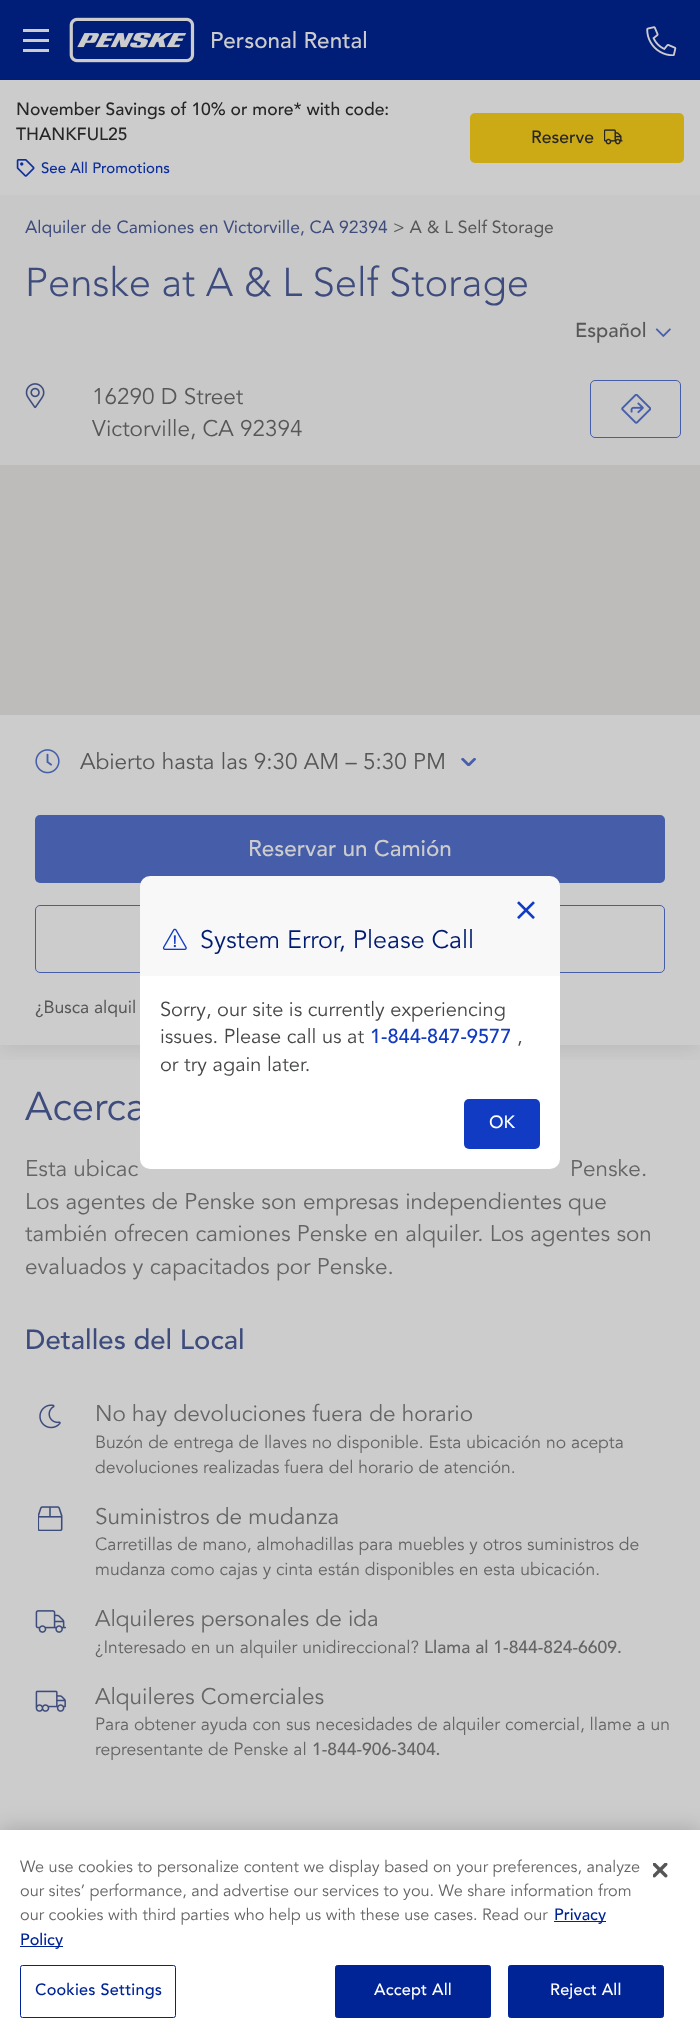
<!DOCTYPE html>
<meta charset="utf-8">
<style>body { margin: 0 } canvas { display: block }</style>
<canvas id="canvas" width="700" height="2043"></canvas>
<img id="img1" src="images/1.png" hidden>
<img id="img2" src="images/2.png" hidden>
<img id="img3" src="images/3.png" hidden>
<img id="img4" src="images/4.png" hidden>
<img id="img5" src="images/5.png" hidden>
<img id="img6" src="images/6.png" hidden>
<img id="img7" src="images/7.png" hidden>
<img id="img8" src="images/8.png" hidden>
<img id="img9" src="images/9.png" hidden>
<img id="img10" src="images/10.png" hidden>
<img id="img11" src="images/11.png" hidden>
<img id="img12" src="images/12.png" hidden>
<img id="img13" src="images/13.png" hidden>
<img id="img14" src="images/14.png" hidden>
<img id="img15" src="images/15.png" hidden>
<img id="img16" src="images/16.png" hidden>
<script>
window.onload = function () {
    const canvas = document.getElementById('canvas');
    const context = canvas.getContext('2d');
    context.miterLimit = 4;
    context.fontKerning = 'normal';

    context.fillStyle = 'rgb(204, 204, 204)';
    context.fillRect(0, 0, 700, 2043);
    context.fillStyle = 'rgb(0, 29, 120)';
    context.fillRect(0, 0, 700, 80);
    context.fillStyle = 'rgb(204, 204, 204)';
    context.fillRect(23, 29, 26, 3);
    context.fillRect(23, 39, 26, 3);
    context.fillRect(23, 49, 26, 3);
    context.drawImage(document.getElementById('img1'), 69, 17, 126, 46);
    context.drawImage(document.getElementById('img2'), 646, 26, 31, 30);
    context.drawImage(document.getElementById('img3'), 16, 159, 19, 18);
    context.fillStyle = 'rgb(204, 170, 22)';
    context.beginPath();
    context.roundRect(470, 113, 214, 50, 5);
    context.fill();
    context.drawImage(document.getElementById('img4'), 604, 129, 19, 16);
    context.fillStyle = 'rgb(200, 200, 200)';
    context.fillRect(0, 195, 700, 270);
    context.drawImage(document.getElementById('img5'), 25, 383, 20, 26);
    context.beginPath();
    context.roundRect(590.5, 380.5, 90, 57, 4.5);
    context.strokeStyle = 'rgb(70, 94, 170)';
    context.stroke();
    context.drawImage(document.getElementById('img6'), 621, 394, 30, 30);
    context.drawImage(document.getElementById('img7'), 655, 328, 16, 9);
    context.save();
    context.beginPath();
    context.rect(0, 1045, 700, 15);
    context.clip();
    context.fillStyle = 'rgba(62, 62, 62, 0.12)';
    context.filter = 'blur(10px)';
    context.beginPath();
    context.rect(0, 720, 700, 330);
    context.fill();
    context.filter = 'none';
    context.restore();
    context.fillStyle = 'rgb(190, 188, 186)';
    context.fillRect(0, 465, 700, 250);
    context.drawImage(document.getElementById('img8'), 35, 749, 25, 25);
    context.drawImage(document.getElementById('img9'), 461, 758, 15, 8);
    context.fillStyle = 'rgb(70, 94, 170)';
    context.beginPath();
    context.roundRect(35, 815, 630, 68, 5);
    context.fill();
    context.beginPath();
    context.roundRect(35.5, 905.5, 629, 67, 4.5);
    context.stroke();
    context.drawImage(document.getElementById('img10'), 39, 1404, 22, 25);
    context.drawImage(document.getElementById('img11'), 38, 1506, 25, 25);
    context.drawImage(document.getElementById('img12'), 35, 1610, 31, 23);
    context.drawImage(document.getElementById('img13'), 35, 1690, 31, 22);
    context.fillStyle = 'rgb(248, 248, 248)';
    context.beginPath();
    context.roundRect(140, 876, 420, 100, [10, 10, 0, 0]);
    context.fill();
    context.drawImage(document.getElementById('img14'), 517, 901, 18, 18);
    context.drawImage(document.getElementById('img15'), 162, 928, 25, 22);
    context.fillStyle = 'rgba(0, 0, 0, 0.2)';
    context.filter = 'blur(11px)';
    context.beginPath();
    context.rect(0, 1830, 700, 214);
    context.fill();
    context.filter = 'none';
    context.fillStyle = 'rgb(255, 255, 255)';
    context.fillRect(0, 1830, 700, 213);
    context.fillStyle = 'rgb(0, 36, 150)';
    context.fillRect(554, 1921, 52, 1);
    context.fillRect(20, 1946, 43, 1);
    context.beginPath();
    context.roundRect(20.5, 1965.5, 155, 52, 2);
    context.strokeStyle = 'rgb(0, 36, 150)';
    context.stroke();
    context.beginPath();
    context.roundRect(335.5, 1965.5, 155, 52, 2);
    context.fill();
    context.stroke();
    context.beginPath();
    context.roundRect(508.5, 1965.5, 155, 52, 2);
    context.fill();
    context.stroke();
    context.drawImage(document.getElementById('img16'), 653, 1863, 15, 15);
    context.font = '500 22.5px Avenir';
    context.fillStyle = 'rgb(204, 204, 204)';
    context.fillText('Personal Rental', 210, 48);
    context.font = '500 17.5px Avenir';
    context.fillStyle = 'rgb(38, 38, 38)';
    context.fillText('November Savings of 10% or more* with code:', 16, 115);
    context.fillText('THANKFUL25', 16, 140);
    context.font = '500 15px Avenir';
    context.fillStyle = 'rgb(14, 47, 155)';
    context.fillText('See All Promotions', 41, 173);
    context.font = '500 17.5px Avenir';
    context.fillStyle = 'rgb(38, 38, 38)';
    context.fillText('Reserve', 531, 143);
    context.font = '17.5px "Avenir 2"';
    context.fillStyle = 'rgb(62, 76, 125)';
    context.fillText('Alquiler de Camiones en Victorville, CA 92394', 25, 233);
    context.fillStyle = 'rgb(87, 87, 88)';
    context.fillText('> A & L Self Storage', 393, 233);
    context.font = '300 40px Avenir';
    context.fillStyle = 'rgb(62, 76, 125)';
    context.fillText('Penske at A & L Self Storage', 25, 296);
    context.font = '22.5px Avenir';
    context.fillStyle = 'rgb(87, 87, 88)';
    context.fillText('16290 D Street', 92, 404);
    context.fillText('Victorville, CA 92394', 92, 436);
    context.font = '500 20px Avenir';
    context.fillText('Español', 575, 337);
    context.font = '22.5px Avenir';
    context.fillText('Abierto hasta las 9:30 AM – 5:30 PM', 80, 769);
    context.font = '500 22.5px Avenir';
    context.fillStyle = 'rgb(204, 204, 204)';
    context.fillText('Reservar un Camión', 248, 856);
    context.font = '17.5px "Avenir 2"';
    context.fillStyle = 'rgb(87, 87, 88)';
    context.fillText('¿Busca alquil', 35, 1013);
    context.font = '40px Avenir';
    context.fillStyle = 'rgb(62, 76, 125)';
    context.fillText('Acerca', 25, 1120);
    context.font = '22.5px Avenir';
    context.fillStyle = 'rgb(101, 101, 101)';
    context.fillText('Esta ubicac', 25, 1176);
    context.fillText('Penske.', 570, 1176);
    context.fillText('Los agentes de Penske son empresas independientes que', 25, 1209);
    context.fillText('también ofrecen camiones Penske en alquiler. Los agentes son', 25, 1241);
    context.fillText('evaluados y capacitados por Penske.', 25, 1274);
    context.font = '500 27.5px Avenir';
    context.fillStyle = 'rgb(62, 76, 125)';
    context.fillText('Detalles del Local', 25, 1349);
    context.font = '22.5px Avenir';
    context.fillStyle = 'rgb(101, 101, 101)';
    context.fillText('No hay devoluciones fuera de horario', 95, 1421);
    context.font = '17.5px Avenir';
    context.fillText('Buzón de entrega de llaves no disponible. Esta ubicación no acepta', 95, 1448);
    context.fillText('devoluciones realizadas fuera del horario de atención.', 95, 1473);
    context.font = '22.5px Avenir';
    context.fillText('Suministros de mudanza', 95, 1524);
    context.font = '17.5px Avenir';
    context.fillText('Carretillas de mano, almohadillas para muebles y otros suministros de', 95, 1550);
    context.fillText('mudanza como cajas y cinta están disponibles en esta ubicación.', 95, 1575);
    context.font = '22.5px Avenir';
    context.fillText('Alquileres personales de ida', 95, 1626);
    context.font = '17.5px Avenir';
    context.fillText('¿Interesado en un alquiler unidireccional?', 95, 1653);
    context.font = '500 17.5px Avenir';
    context.fillText('Llama al 1-844-824-6609.', 424, 1653);
    context.font = '22.5px Avenir';
    context.fillText('Alquileres Comerciales', 95, 1704);
    context.font = '17.5px Avenir';
    context.fillText('Para obtener ayuda con sus necesidades de alquiler comercial, llame a un', 95, 1730);
    context.fillText('representante de Penske al', 95, 1755);
    context.font = '500 17.5px Avenir';
    context.fillText('1-844-906-3404.', 312, 1755);
    context.font = '25px Avenir';
    context.fillStyle = 'rgb(0, 27, 113)';
    context.fillText('System Error, Please Call', 200, 948);
    context.fillStyle = 'rgb(255, 255, 255)';
    context.beginPath();
    context.roundRect(140, 976, 420, 193, [0, 0, 10, 10]);
    context.fill();
    context.font = '20px Avenir';
    context.fillStyle = 'rgb(70, 71, 71)';
    context.fillText('Sorry, our site is currently experiencing', 160, 1016);
    context.fillText('issues. Please call us at', 160, 1043);
    context.font = '500 20px Avenir';
    context.fillStyle = 'rgb(17, 59, 194)';
    context.fillText('1-844-847-9577', 370, 1043);
    context.font = '20px Avenir';
    context.fillStyle = 'rgb(70, 71, 71)';
    context.fillText(',', 517, 1043);
    context.fillText('or try again later.', 160, 1071);
    context.fillStyle = 'rgb(17, 59, 194)';
    context.beginPath();
    context.roundRect(464, 1099, 76, 50, 5);
    context.fill();
    context.font = '500 17.5px Avenir';
    context.fillStyle = 'rgb(255, 255, 255)';
    context.fillText('OK', 489, 1128);
    context.font = '16.25px Avenir';
    context.fillStyle = 'rgb(101, 101, 101)';
    context.fillText('We use cookies to personalize content we display based on your preferences, analyze', 20, 1872);
    context.fillText('our sites’ performance, and advertise our services to you. We share information from', 20, 1896);
    context.fillText('our cookies with third parties who help us with these use cases. Read our', 20, 1920);
    context.font = '500 16.25px Avenir';
    context.fillStyle = 'rgb(0, 36, 150)';
    context.fillText('Privacy', 554, 1920);
    context.fillText('Policy', 20, 1945);
    context.letterSpacing = '0.2px';
    context.fillText('Cookies Settings', 35, 1995);
    context.fillStyle = 'rgb(255, 255, 255)';
    context.fillText('Accept All', 374, 1995);
    context.fillText('Reject All', 550, 1995);
};
</script>
